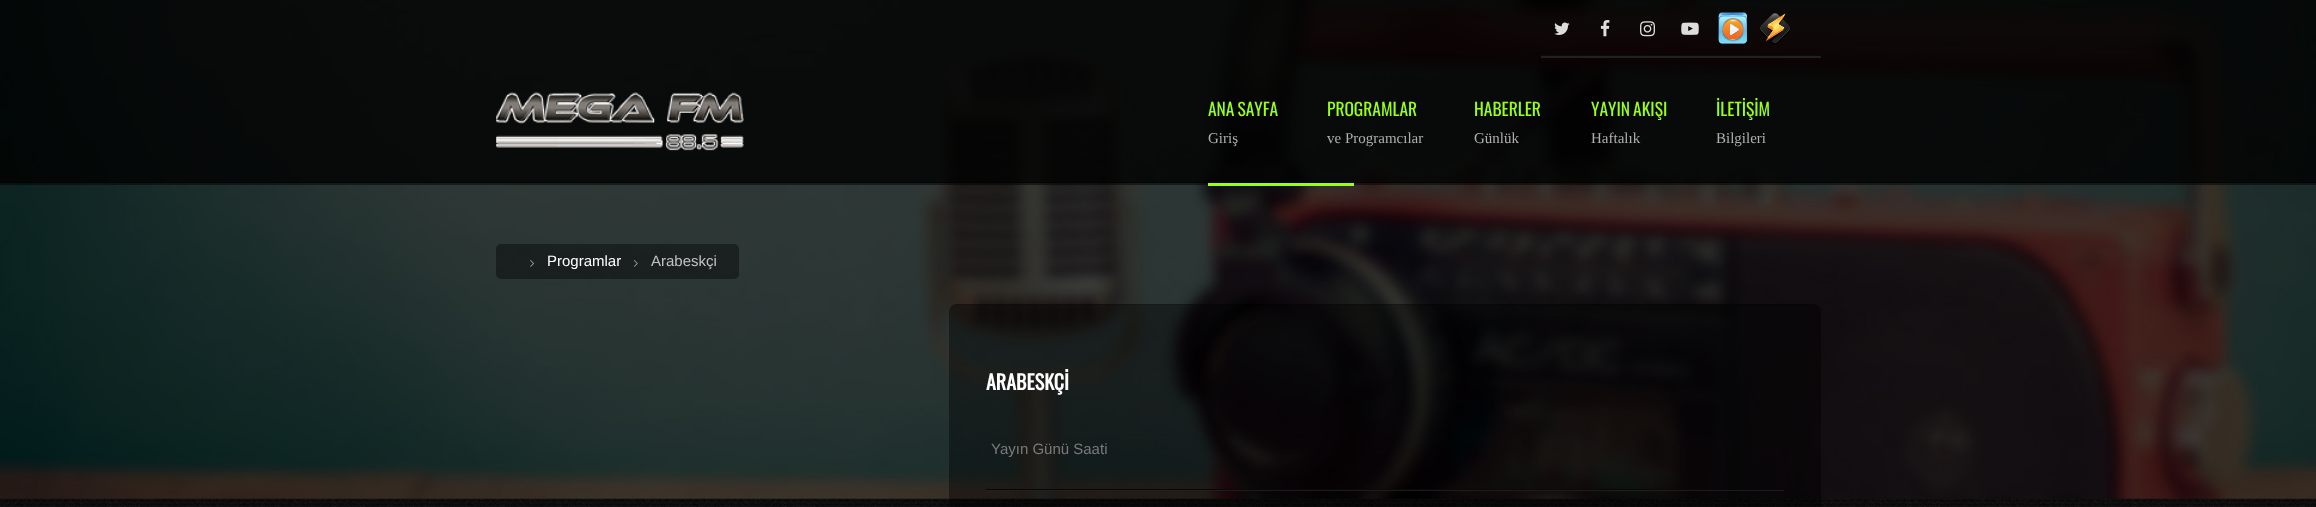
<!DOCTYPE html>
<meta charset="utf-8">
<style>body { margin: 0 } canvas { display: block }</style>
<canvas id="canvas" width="2316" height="507"></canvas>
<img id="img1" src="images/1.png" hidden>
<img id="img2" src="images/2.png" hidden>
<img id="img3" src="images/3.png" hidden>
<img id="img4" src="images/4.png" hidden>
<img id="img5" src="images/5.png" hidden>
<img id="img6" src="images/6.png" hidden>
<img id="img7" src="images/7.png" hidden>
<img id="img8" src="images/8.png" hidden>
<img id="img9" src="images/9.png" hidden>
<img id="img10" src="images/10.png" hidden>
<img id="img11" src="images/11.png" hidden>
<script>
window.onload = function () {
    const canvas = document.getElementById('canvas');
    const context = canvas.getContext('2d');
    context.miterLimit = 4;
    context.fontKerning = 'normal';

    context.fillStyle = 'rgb(255, 255, 255)';
    context.fillRect(0, 0, 2316, 507);
    context.drawImage(document.getElementById('img1'), 0, 498, 2316, 9);
    context.drawImage(document.getElementById('img2'), 0, 0, 2316, 499);
    context.fillStyle = 'rgba(0, 0, 0, 0.5)';
    context.fillRect(0, 182, 2316, 3);
    context.fillStyle = 'rgba(0, 0, 0, 0.8)';
    context.fillRect(0, 0, 2316, 183);
    context.fillStyle = 'rgb(34, 33, 33)';
    context.beginPath();
    context.moveTo(1541, 1);
    context.lineTo(1541, 58);
    context.lineTo(1821, 58);
    context.lineTo(1821, 56);
    context.lineTo(1541, 56);
    context.closePath();
    context.fill();
    context.fillStyle = 'rgb(11, 11, 11)';
    context.fillRect(1541, 55, 280, 1);
    context.drawImage(document.getElementById('img3'), 1554, 22, 16, 13);
    context.drawImage(document.getElementById('img4'), 1600, 20, 10, 17);
    context.drawImage(document.getElementById('img5'), 1640, 21, 15, 16);
    context.drawImage(document.getElementById('img6'), 1681, 22, 18, 13);
    context.drawImage(document.getElementById('img7'), 1718, 12, 29, 32);
    context.drawImage(document.getElementById('img8'), 1760, 13, 30, 32);
    context.drawImage(document.getElementById('img9'), 496, 92, 248, 59);
    context.fillStyle = 'rgb(153, 255, 25)';
    context.fillRect(1208, 183, 146, 3);
    context.fillStyle = 'rgba(0, 0, 0, 0.4)';
    context.beginPath();
    context.roundRect(496, 244, 243, 35, 5);
    context.fill();
    context.drawImage(document.getElementById('img10'), 530, 260, 5, 7);
    context.drawImage(document.getElementById('img11'), 633, 260, 5, 7);
    context.beginPath();
    context.roundRect(949, 304, 872, 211, 8);
    context.fill();
    context.fillStyle = 'rgba(0, 0, 0, 0.15)';
    context.beginPath();
    context.moveTo(956, 305);
    context.lineTo(1814, 305);
    context.bezierCurveTo(1818, 305, 1821, 308, 1821, 312);
    context.bezierCurveTo(1821, 308, 1817, 304, 1813, 304);
    context.lineTo(957, 304);
    context.bezierCurveTo(953, 304, 949, 308, 949, 312);
    context.bezierCurveTo(949, 308, 952, 305, 956, 305);
    context.closePath();
    context.fill();
    context.fillStyle = 'rgba(34, 34, 34, 0.8)';
    context.beginPath();
    context.moveTo(986, 343);
    context.lineTo(986, 491);
    context.lineTo(1784, 491);
    context.lineTo(1784, 343);
    context.lineTo(1784, 490);
    context.lineTo(986, 490);
    context.closePath();
    context.fill();
    context.fillStyle = 'rgb(8, 8, 8)';
    context.fillRect(986, 489, 711, 1);
    context.wordSpacing = '-1px';
    context.font = '17.5px Oswald';
    context.fillStyle = 'rgb(153, 255, 25)';
    context.fillText('ANA SAYFA', 1208, 116);
    context.wordSpacing = '0px';
    context.font = '15px Liberation Serif';
    context.fillStyle = 'rgb(175, 175, 175)';
    context.fillText('Giriş', 1208, 143);
    context.font = '17.5px Oswald';
    context.fillStyle = 'rgb(153, 255, 25)';
    context.fillText('PROGRAMLAR', 1327, 116);
    context.font = '15px Liberation Serif';
    context.fillStyle = 'rgb(175, 175, 175)';
    context.fillText('ve Programcılar', 1327, 143);
    context.font = '17.5px Oswald';
    context.fillStyle = 'rgb(153, 255, 25)';
    context.fillText('HABERLER', 1474, 116);
    context.font = '15px Liberation Serif';
    context.fillStyle = 'rgb(175, 175, 175)';
    context.fillText('Günlük', 1474, 143);
    context.wordSpacing = '-1px';
    context.font = '17.5px Oswald';
    context.fillStyle = 'rgb(153, 255, 25)';
    context.fillText('YAYIN AKIŞI', 1591, 116);
    context.wordSpacing = '0px';
    context.font = '15px Liberation Serif';
    context.fillStyle = 'rgb(175, 175, 175)';
    context.fillText('Haftalık', 1591, 143);
    context.font = '17.5px Oswald';
    context.fillStyle = 'rgb(153, 255, 25)';
    context.fillText('İLETİŞİM', 1716, 116);
    context.font = '15px Liberation Serif';
    context.fillStyle = 'rgb(175, 175, 175)';
    context.fillText('Bilgileri', 1716, 143);
    context.font = '15px Liberation Sans';
    context.fillStyle = 'rgb(255, 255, 255)';
    context.fillText('Programlar', 547, 266);
    context.fillStyle = 'rgb(194, 194, 194)';
    context.fillText('Arabeskçi', 651, 266);
    context.font = 'bold 20px Oswald';
    context.fillStyle = 'rgb(255, 255, 255)';
    context.fillText('ARABESKÇİ', 986, 390);
    context.font = '15px Liberation Sans';
    context.fillStyle = 'rgb(122, 122, 122)';
    context.fillText('Yayın Günü Saati', 991, 454);
};
</script>
